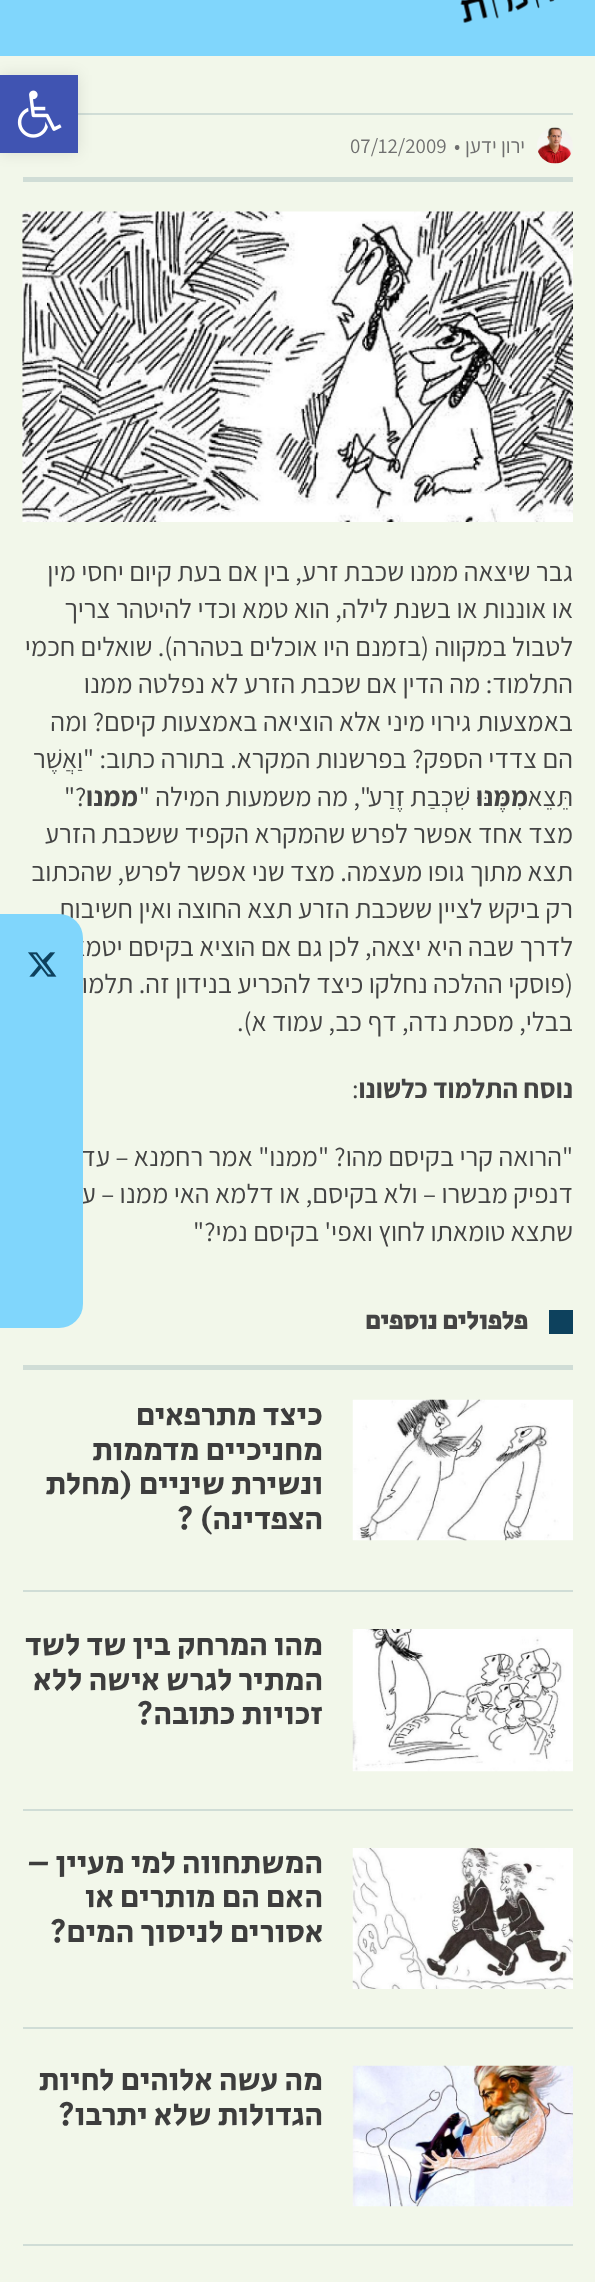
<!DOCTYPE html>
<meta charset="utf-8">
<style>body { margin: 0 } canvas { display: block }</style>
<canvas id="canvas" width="595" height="2282"></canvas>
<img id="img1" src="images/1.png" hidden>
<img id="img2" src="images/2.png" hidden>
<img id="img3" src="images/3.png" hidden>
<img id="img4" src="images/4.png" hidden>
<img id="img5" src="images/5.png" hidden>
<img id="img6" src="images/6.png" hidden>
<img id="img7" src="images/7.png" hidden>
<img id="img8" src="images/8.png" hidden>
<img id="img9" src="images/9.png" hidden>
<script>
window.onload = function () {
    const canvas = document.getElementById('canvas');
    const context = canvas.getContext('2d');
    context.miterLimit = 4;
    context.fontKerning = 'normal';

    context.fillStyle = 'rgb(128, 214, 252)';
    context.fillRect(0, 0, 595, 2282);
    context.fillStyle = 'rgb(242, 247, 234)';
    context.fillRect(0, 56, 595, 2226);
    context.fillStyle = 'rgb(208, 221, 214)';
    context.fillRect(78, 113, 495, 2);
    context.fillStyle = 'rgba(0, 0, 0, 0.1)';
    context.filter = 'blur(7.5px)';
    context.beginPath();
    context.rect(0, 75, 78, 78);
    context.fill();
    context.filter = 'none';
    context.fillStyle = 'rgb(64, 84, 178)';
    context.fillRect(0, 75, 78, 78);
    context.drawImage(document.getElementById('img1'), 17, 90, 45, 48);
    context.drawImage(document.getElementById('img2'), 460, 0, 95, 23);
    context.fillStyle = 'rgb(208, 221, 214)';
    context.fillRect(23, 177, 550, 5);
    context.drawImage(document.getElementById('img3'), 537, 127, 36, 37);
    context.drawImage(document.getElementById('img4'), 22, 211, 551, 311);
    context.fillRect(23, 1365, 550, 5);
    context.fillStyle = 'rgb(13, 65, 93)';
    context.fillRect(549, 1310, 24, 24);
    context.fillStyle = 'rgb(208, 221, 214)';
    context.fillRect(23, 1590, 550, 2);
    context.drawImage(document.getElementById('img5'), 352, 1399, 221, 142);
    context.fillRect(23, 1809, 550, 2);
    context.drawImage(document.getElementById('img6'), 352, 1629, 221, 143);
    context.fillRect(23, 2027, 550, 2);
    context.drawImage(document.getElementById('img7'), 352, 1848, 221, 141);
    context.fillRect(23, 2244, 550, 2);
    context.drawImage(document.getElementById('img8'), 352, 2065, 221, 142);
    context.direction = 'rtl';
    context.font = '21px Assistant';
    context.fillStyle = 'rgb(111, 111, 111)';
    context.fillText('ירון ידען', 525, 153);
    context.direction = 'ltr';
    context.fillText('•', 454, 153);
    context.fillText('07/12/2009', 350, 153);
    context.direction = 'rtl';
    context.font = '27px Assistant';
    context.fillStyle = 'rgb(68, 68, 68)';
    context.fillText('גבר שיצאה ממנו שכבת זרע, בין אם בעת קיום יחסי מין', 573, 581);
    context.fillText('או אוננות או בשנת לילה, הוא טמא וכדי להיטהר צריך', 573, 618);
    context.fillText('לטבול במקווה (בזמנם היו אוכלים בטהרה). שואלים חכמי', 573, 656);
    context.fillText('התלמוד: מה הדין אם שכבת הזרע לא נפלטה ממנו', 573, 693);
    context.fillText('באמצעות גירוי מיני אלא הוציאה באמצעות קיסם? ומה', 573, 731);
    context.fillText('הם צדדי הספק? בפרשנות המקרא. בתורה כתוב: "וַאֲשֶׁר', 573, 768);
    context.fillText('תֵּצֵא', 573, 806);
    context.font = 'bold 27px Assistant';
    context.fillText('מִמֶּנּו', 528, 806);
    context.font = '27px Assistant';
    context.fillText('ּ שִׁכְבַת זֶרַע", מה משמעות המילה "', 476, 806);
    context.font = 'bold 27px Assistant';
    context.fillText('ממנו', 138, 806);
    context.direction = 'ltr';
    context.font = '27px Assistant';
    context.fillText('"?', 64, 806);
    context.direction = 'rtl';
    context.fillText('מצד אחד אפשר לפרש שהמקרא הקפיד ששכבת הזרע', 573, 843);
    context.fillText('תצא מתוך גופו מעצמה. מצד שני אפשר לפרש, שהכתוב', 573, 881);
    context.fillText('רק ביקש לציין ששכבת הזרע תצא החוצה ואין חשיבות', 573, 918);
    context.fillText('לדרך שבה היא יצאה, לכן גם אם הוציא בקיסם יטמא.', 573, 956);
    context.fillText('(פוסקי ההלכה נחלקו כיצד להכריע בנידון זה. תלמוד', 573, 993);
    context.fillText('בבלי, מסכת נדה, דף כב, עמוד א).', 573, 1031);
    context.font = 'bold 27px Assistant';
    context.fillText('נוסח התלמוד כלשונו', 573, 1098);
    context.direction = 'ltr';
    context.font = '27px Assistant';
    context.fillText(':', 352, 1098);
    context.direction = 'rtl';
    context.fillText('"הרואה קרי בקיסם מהו? "ממנו" אמר רחמנא – עד', 573, 1166);
    context.fillText('דנפיק מבשרו – ולא בקיסם, או דלמא האי ממנו – עד', 573, 1203);
    context.fillText('שתצא טומאתו לחוץ ואפי\' בקיסם נמי?"', 573, 1241);
    context.font = 'bold 25.5px Secular One';
    context.fillText('פלפולים נוספים', 528, 1329);
    context.font = '31.5px Secular One';
    context.fillStyle = 'rgb(61, 61, 61)';
    context.fillText('כיצד מתרפאים', 323, 1425);
    context.fillText('מחניכיים מדממות', 323, 1460);
    context.fillText('ונשירת שיניים (מחלת', 323, 1494);
    context.fillText('הצפדינה) ?', 323, 1529);
    context.fillText('מהו המרחק בין שד לשד', 323, 1655);
    context.fillText('המתיר לגרש אישה ללא', 323, 1690);
    context.fillText('זכויות כתובה?', 323, 1724);
    context.fillText('המשתחווה למי מעיין –', 323, 1873);
    context.fillText('האם הם מותרים או', 323, 1907);
    context.fillText('אסורים לניסוך המים?', 323, 1942);
    context.fillText('מה עשה אלוהים לחיות', 323, 2090);
    context.fillText('הגדולות שלא יתרבו?', 323, 2125);
    context.fillStyle = 'rgb(128, 214, 252)';
    context.beginPath();
    context.roundRect(0, 914, 83, 414, [0, 24, 24, 0]);
    context.fill();
    context.drawImage(document.getElementById('img9'), 28, 952, 29, 25);
};
</script>
